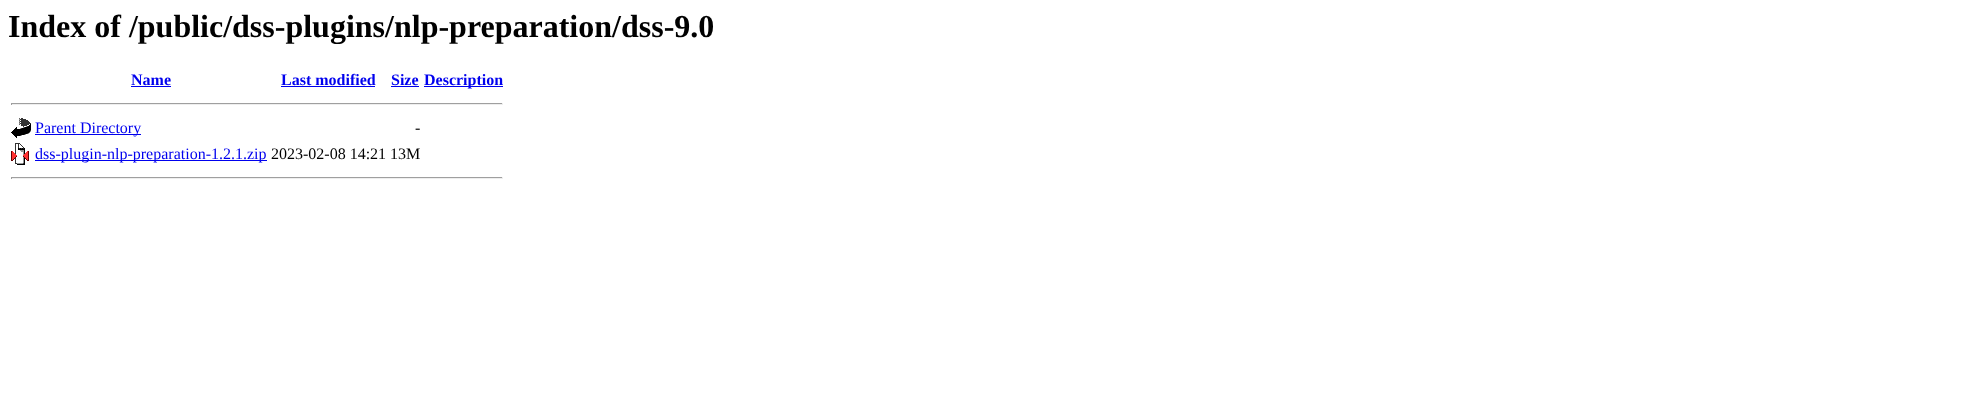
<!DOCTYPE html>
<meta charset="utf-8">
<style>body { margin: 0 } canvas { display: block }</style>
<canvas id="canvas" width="1988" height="403"></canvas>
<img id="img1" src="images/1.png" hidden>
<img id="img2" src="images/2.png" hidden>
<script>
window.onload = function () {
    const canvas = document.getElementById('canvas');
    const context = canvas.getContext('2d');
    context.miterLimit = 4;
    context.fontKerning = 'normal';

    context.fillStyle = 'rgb(255, 255, 255)';
    context.fillRect(0, 0, 1988, 403);
    context.fillStyle = 'rgb(0, 0, 238)';
    context.fillRect(131, 86, 40, 1);
    context.fillRect(281, 86, 94, 1);
    context.fillRect(391, 86, 28, 1);
    context.fillRect(424, 86, 79, 1);
    context.fillStyle = 'rgb(159, 159, 159)';
    context.fillRect(11, 103, 492, 1);
    context.fillStyle = 'rgb(238, 238, 238)';
    context.fillRect(502, 103, 1, 2);
    context.fillRect(11, 104, 492, 1);
    context.fillStyle = 'rgb(159, 159, 159)';
    context.fillRect(11, 103, 1, 2);
    context.drawImage(document.getElementById('img1'), 11, 118, 20, 20);
    context.fillStyle = 'rgb(0, 0, 238)';
    context.fillRect(35, 134, 106, 1);
    context.drawImage(document.getElementById('img2'), 11, 143, 18, 22);
    context.fillRect(35, 160, 232, 1);
    context.fillStyle = 'rgb(159, 159, 159)';
    context.fillRect(11, 177, 492, 1);
    context.fillStyle = 'rgb(238, 238, 238)';
    context.fillRect(502, 177, 1, 2);
    context.fillRect(11, 178, 492, 1);
    context.fillStyle = 'rgb(159, 159, 159)';
    context.fillRect(11, 177, 1, 2);
    context.font = 'bold 32px Liberation Serif';
    context.fillStyle = 'rgb(0, 0, 0)';
    context.fillText('Index of /public/dss-plugins/nlp-preparation/dss-9.0', 8, 37);
    context.font = 'bold 16px Liberation Serif';
    context.fillStyle = 'rgb(0, 0, 238)';
    context.fillText('Name', 131, 85);
    context.fillText('Last modified', 281, 85);
    context.fillText('Size', 391, 85);
    context.fillText('Description', 424, 85);
    context.font = '16px Liberation Serif';
    context.fillText('Parent Directory', 35, 133);
    context.fillStyle = 'rgb(0, 0, 0)';
    context.fillText('-', 415, 133);
    context.fillStyle = 'rgb(0, 0, 238)';
    context.fillText('dss-plugin-nlp-preparation-1.2.1.zip', 35, 159);
    context.fillStyle = 'rgb(0, 0, 0)';
    context.fillText('2023-02-08 14:21 13M', 271, 159);
};
</script>
